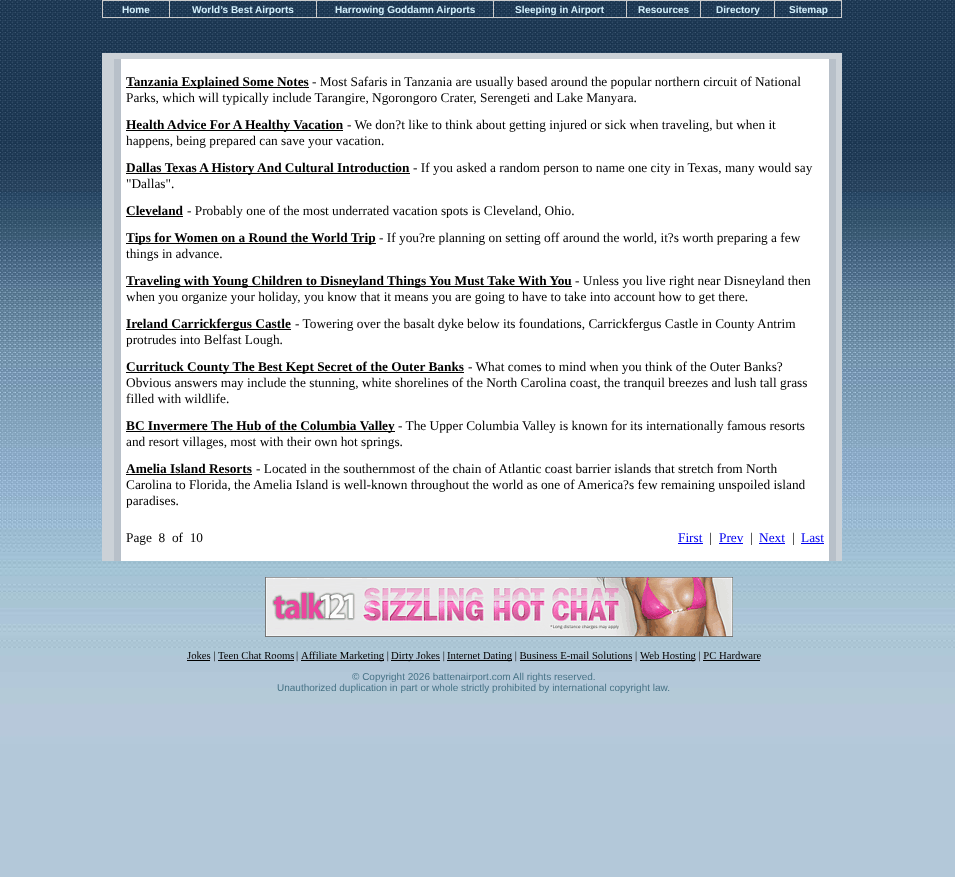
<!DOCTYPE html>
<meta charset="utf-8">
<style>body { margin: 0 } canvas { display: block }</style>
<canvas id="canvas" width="955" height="877"></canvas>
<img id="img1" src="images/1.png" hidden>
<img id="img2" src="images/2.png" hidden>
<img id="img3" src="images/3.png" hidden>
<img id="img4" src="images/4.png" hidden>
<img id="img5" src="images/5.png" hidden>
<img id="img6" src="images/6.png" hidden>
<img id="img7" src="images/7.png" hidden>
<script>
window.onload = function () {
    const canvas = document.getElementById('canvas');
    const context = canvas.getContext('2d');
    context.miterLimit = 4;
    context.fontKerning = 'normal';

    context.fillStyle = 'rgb(255, 255, 255)';
    context.fillRect(0, 0, 955, 877);
    context.drawImage(document.getElementById('img1'), 0, 0, 955, 877);
    context.fillStyle = 'rgb(204, 204, 204)';
    context.fillRect(102, 0, 740, 18);
    context.drawImage(document.getElementById('img2'), 103, 1, 66, 16);
    context.drawImage(document.getElementById('img3'), 170, 1, 146, 16);
    context.drawImage(document.getElementById('img4'), 317, 1, 176, 16);
    context.drawImage(document.getElementById('img5'), 494, 1, 132, 16);
    context.drawImage(document.getElementById('img6'), 627, 1, 73, 16);
    context.drawImage(document.getElementById('img6'), 701, 1, 73, 16);
    context.drawImage(document.getElementById('img2'), 775, 1, 66, 16);
    context.fillStyle = 'rgb(203, 209, 215)';
    context.fillRect(102, 53, 740, 508);
    context.fillStyle = 'rgb(184, 192, 201)';
    context.fillRect(114, 59, 722, 502);
    context.fillStyle = 'rgb(255, 255, 255)';
    context.fillRect(121, 59, 708, 502);
    context.fillStyle = 'rgb(0, 0, 0)';
    context.fillRect(126, 87, 183, 1);
    context.fillRect(126, 130, 217, 1);
    context.fillRect(126, 173, 284, 1);
    context.fillRect(126, 216, 57, 1);
    context.fillRect(126, 243, 250, 1);
    context.fillRect(126, 286, 446, 1);
    context.fillRect(126, 329, 165, 1);
    context.fillRect(126, 372, 338, 1);
    context.fillRect(126, 431, 269, 1);
    context.fillRect(126, 474, 126, 1);
    context.fillStyle = 'rgb(0, 0, 238)';
    context.fillRect(678, 543, 25, 1);
    context.fillRect(719, 543, 24, 1);
    context.fillRect(759, 543, 26, 1);
    context.fillRect(801, 543, 23, 1);
    context.drawImage(document.getElementById('img7'), 265, 577, 468, 60);
    context.fillStyle = 'rgb(0, 0, 0)';
    context.fillRect(187, 660, 23, 1);
    context.fillRect(218, 660, 76, 1);
    context.fillRect(301, 660, 83, 1);
    context.fillRect(391, 660, 49, 1);
    context.fillRect(447, 660, 65, 1);
    context.fillRect(520, 660, 112, 1);
    context.fillRect(640, 660, 55, 1);
    context.fillRect(703, 660, 57, 1);
    context.font = 'bold 10px Liberation Sans';
    context.fillStyle = 'rgb(210, 238, 250)';
    context.fillText('Home', 122, 13);
    context.fillText('World’s Best Airports', 192, 13);
    context.fillText('Harrowing Goddamn Airports', 335, 13);
    context.fillText('Sleeping in Airport', 515, 13);
    context.fillText('Resources', 638, 13);
    context.fillText('Directory', 716, 13);
    context.fillText('Sitemap', 789, 13);
    context.font = 'bold 13.33px Liberation Serif';
    context.fillStyle = 'rgb(0, 0, 0)';
    context.fillText('Tanzania Explained Some Notes', 126, 86);
    context.font = '13.33px Liberation Serif';
    context.fillText('- Most Safaris in Tanzania are usually based around the popular northern circuit of National', 312, 86);
    context.fillText('Parks, which will typically include Tarangire, Ngorongoro Crater, Serengeti and Lake Manyara.', 126, 102);
    context.font = 'bold 13.33px Liberation Serif';
    context.fillText('Health Advice For A Healthy Vacation', 126, 129);
    context.font = '13.33px Liberation Serif';
    context.fillText('- We don?t like to think about getting injured or sick when traveling, but when it', 347, 129);
    context.fillText('happens, being prepared can save your vacation.', 126, 145);
    context.font = 'bold 13.33px Liberation Serif';
    context.fillText('Dallas Texas A History And Cultural Introduction', 126, 172);
    context.font = '13.33px Liberation Serif';
    context.fillText('- If you asked a random person to name one city in Texas, many would say', 413, 172);
    context.fillText('"Dallas".', 126, 188);
    context.font = 'bold 13.33px Liberation Serif';
    context.fillText('Cleveland', 126, 215);
    context.font = '13.33px Liberation Serif';
    context.fillText('- Probably one of the most underrated vacation spots is Cleveland, Ohio.', 187, 215);
    context.font = 'bold 13.33px Liberation Serif';
    context.fillText('Tips for Women on a Round the World Trip', 126, 242);
    context.font = '13.33px Liberation Serif';
    context.fillText('- If you?re planning on setting off around the world, it?s worth preparing a few', 379, 242);
    context.fillText('things in advance.', 126, 258);
    context.font = 'bold 13.33px Liberation Serif';
    context.fillText('Traveling with Young Children to Disneyland Things You Must Take With You', 126, 285);
    context.font = '13.33px Liberation Serif';
    context.fillText('- Unless you live right near Disneyland then', 575, 285);
    context.fillText('when you organize your holiday, you know that it means you are going to have to take into account how to get there.', 126, 301);
    context.font = 'bold 13.33px Liberation Serif';
    context.fillText('Ireland Carrickfergus Castle', 126, 328);
    context.font = '13.33px Liberation Serif';
    context.fillText('- Towering over the basalt dyke below its foundations, Carrickfergus Castle in County Antrim', 295, 328);
    context.fillText('protrudes into Belfast Lough.', 126, 344);
    context.font = 'bold 13.33px Liberation Serif';
    context.fillText('Currituck County The Best Kept Secret of the Outer Banks', 126, 371);
    context.font = '13.33px Liberation Serif';
    context.fillText('- What comes to mind when you think of the Outer Banks?', 468, 371);
    context.fillText('Obvious answers may include the stunning, white shorelines of the North Carolina coast, the tranquil breezes and lush tall grass', 126, 387);
    context.fillText('filled with wildlife.', 126, 403);
    context.font = 'bold 13.33px Liberation Serif';
    context.fillText('BC Invermere The Hub of the Columbia Valley', 126, 430);
    context.font = '13.33px Liberation Serif';
    context.fillText('- The Upper Columbia Valley is known for its internationally famous resorts', 398, 430);
    context.fillText('and resort villages, most with their own hot springs.', 126, 446);
    context.font = 'bold 13.33px Liberation Serif';
    context.fillText('Amelia Island Resorts', 126, 473);
    context.font = '13.33px Liberation Serif';
    context.fillText('- Located in the southernmost of the chain of Atlantic coast barrier islands that stretch from North', 256, 473);
    context.fillText('Carolina to Florida, the Amelia Island is well-known throughout the world as one of America?s few remaining unspoiled island', 126, 489);
    context.fillText('paradises.', 126, 505);
    context.fillText('Page  8  of  10', 126, 542);
    context.fillStyle = 'rgb(0, 0, 238)';
    context.fillText('First', 678, 542);
    context.fillStyle = 'rgb(0, 0, 0)';
    context.fillText('|', 709, 542);
    context.fillStyle = 'rgb(0, 0, 238)';
    context.fillText('Prev', 719, 542);
    context.fillStyle = 'rgb(0, 0, 0)';
    context.fillText('|', 750, 542);
    context.fillStyle = 'rgb(0, 0, 238)';
    context.fillText('Next', 759, 542);
    context.fillStyle = 'rgb(0, 0, 0)';
    context.fillText('|', 792, 542);
    context.fillStyle = 'rgb(0, 0, 238)';
    context.fillText('Last', 801, 542);
    context.font = '10.7px Liberation Serif';
    context.fillStyle = 'rgb(0, 0, 0)';
    context.fillText('Jokes | Teen Chat Rooms', 187, 659);
    context.fillText('|', 296, 659);
    context.fillText('Affiliate Marketing |', 301, 659);
    context.fillText('Dirty Jokes |', 391, 659);
    context.fillText('Internet Dating | Business E-mail Solutions |', 447, 659);
    context.fillText('Web Hosting | PC Hardware', 640, 659);
    context.font = '10px Liberation Sans';
    context.fillStyle = 'rgb(71, 114, 134)';
    context.fillText('© Copyright 2026 battenairport.com All rights reserved.', 352, 680);
    context.fillText('Unauthorized duplication in part or whole strictly prohibited by international copyright law.', 277, 691);
};
</script>
